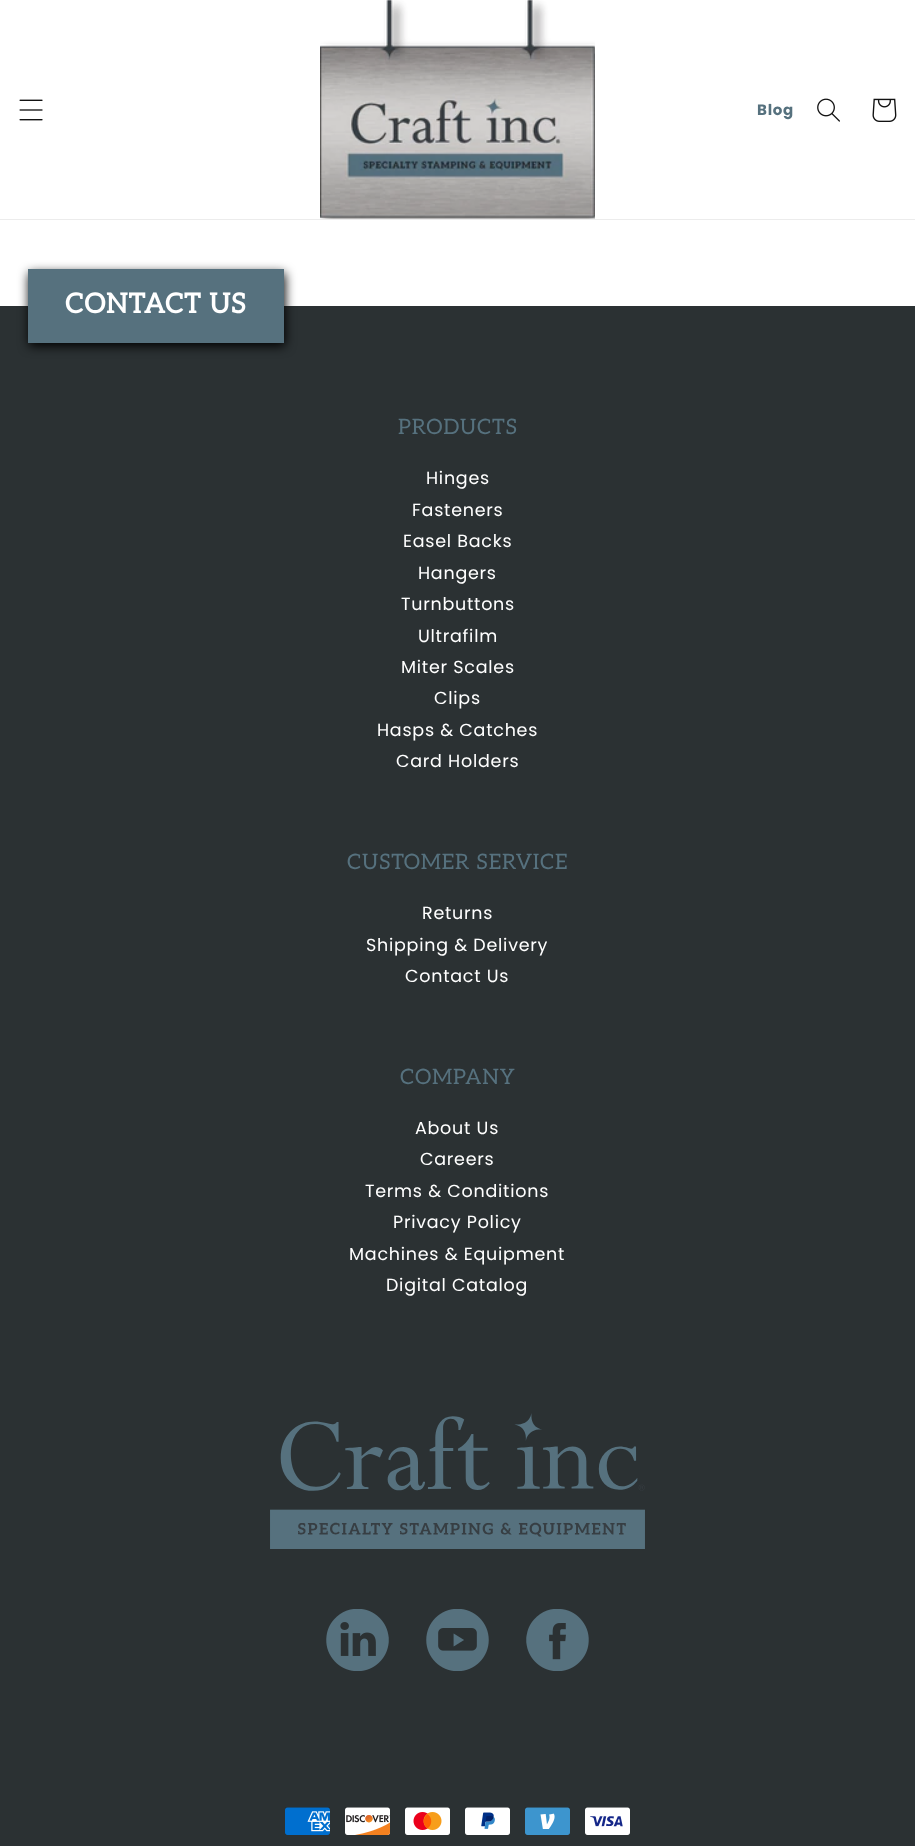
<!DOCTYPE html>
<meta charset="utf-8">
<style>body { margin: 0 } canvas { display: block }</style>
<canvas id="canvas" width="915" height="1846"></canvas>
<img id="img1" src="images/1.png" hidden>
<img id="img2" src="images/2.png" hidden>
<img id="img3" src="images/3.png" hidden>
<img id="img4" src="images/4.png" hidden>
<img id="img5" src="images/5.png" hidden>
<img id="img6" src="images/6.png" hidden>
<img id="img7" src="images/7.png" hidden>
<img id="img8" src="images/8.png" hidden>
<img id="img9" src="images/9.png" hidden>
<img id="img10" src="images/10.png" hidden>
<img id="img11" src="images/11.png" hidden>
<img id="img12" src="images/12.png" hidden>
<img id="img13" src="images/13.png" hidden>
<img id="img14" src="images/14.png" hidden>
<script>
window.onload = function () {
    const canvas = document.getElementById('canvas');
    const context = canvas.getContext('2d');
    context.miterLimit = 4;
    context.fontKerning = 'normal';

    context.fillStyle = 'rgb(255, 255, 255)';
    context.fillRect(0, 0, 915, 1846);
    context.fillStyle = 'rgb(236, 236, 236)';
    context.fillRect(0, 219, 915, 1);
    context.drawImage(document.getElementById('img1'), 19, 99, 24, 22);
    context.drawImage(document.getElementById('img2'), 320, 0, 275, 219);
    context.drawImage(document.getElementById('img3'), 817, 98, 23, 24);
    context.drawImage(document.getElementById('img4'), 872, 98, 25, 24);
    context.fillStyle = 'rgb(43, 49, 51)';
    context.fillRect(0, 306, 915, 1540);
    context.fillStyle = 'rgb(0, 0, 0)';
    context.filter = 'blur(5.5px)';
    context.beginPath();
    context.rect(29, 273, 256, 73);
    context.fill();
    context.filter = 'none';
    context.fillStyle = 'rgb(86, 113, 126)';
    context.fillRect(28, 269, 256, 74);
    context.drawImage(document.getElementById('img5'), 270, 1413, 375, 136);
    context.drawImage(document.getElementById('img6'), 326, 1609, 63, 62);
    context.drawImage(document.getElementById('img7'), 426, 1609, 63, 62);
    context.drawImage(document.getElementById('img8'), 526, 1609, 63, 62);
    context.drawImage(document.getElementById('img9'), 285, 1807, 45, 28);
    context.drawImage(document.getElementById('img10'), 345, 1807, 45, 28);
    context.drawImage(document.getElementById('img11'), 405, 1807, 45, 28);
    context.drawImage(document.getElementById('img12'), 465, 1807, 45, 28);
    context.drawImage(document.getElementById('img13'), 525, 1807, 45, 28);
    context.drawImage(document.getElementById('img14'), 585, 1807, 45, 28);
    context.letterSpacing = '0.75px';
    context.font = 'bold 15px Poppins';
    context.fillText('Blog', 757, 115);
    context.font = 'bold 27.5px Aleo';
    context.fillStyle = 'rgb(255, 255, 255)';
    context.fillText('CONTACT US', 65, 313);
    context.font = '21.25px Aleo';
    context.fillStyle = 'rgb(86, 113, 126)';
    context.fillText('PRODUCTS', 398, 434);
    context.font = '17.5px Poppins';
    context.fillStyle = 'rgb(255, 255, 255)';
    context.fillText('Hinges', 426, 484);
    context.fillText('Fasteners', 412, 516);
    context.fillText('Easel Backs', 403, 547);
    context.fillText('Hangers', 418, 579);
    context.fillText('Turnbuttons', 401, 610);
    context.fillText('Ultrafilm', 418, 642);
    context.fillText('Miter Scales', 401, 673);
    context.fillText('Clips', 434, 704);
    context.fillText('Hasps & Catches', 377, 736);
    context.fillText('Card Holders', 396, 767);
    context.font = '21.25px Aleo';
    context.fillStyle = 'rgb(86, 113, 126)';
    context.fillText('CUSTOMER SERVICE', 347, 869);
    context.font = '17.5px Poppins';
    context.fillStyle = 'rgb(255, 255, 255)';
    context.fillText('Returns', 422, 919);
    context.fillText('Shipping & Delivery', 366, 951);
    context.fillText('Contact Us', 405, 982);
    context.font = '21.25px Aleo';
    context.fillStyle = 'rgb(86, 113, 126)';
    context.fillText('COMPANY', 400, 1084);
    context.font = '17.5px Poppins';
    context.fillStyle = 'rgb(255, 255, 255)';
    context.fillText('About Us', 415, 1134);
    context.fillText('Careers', 420, 1165);
    context.fillText('Terms & Conditions', 365, 1197);
    context.fillText('Privacy Policy', 393, 1228);
    context.fillText('Machines & Equipment', 349, 1260);
    context.fillText('Digital Catalog', 386, 1291);
};
</script>
